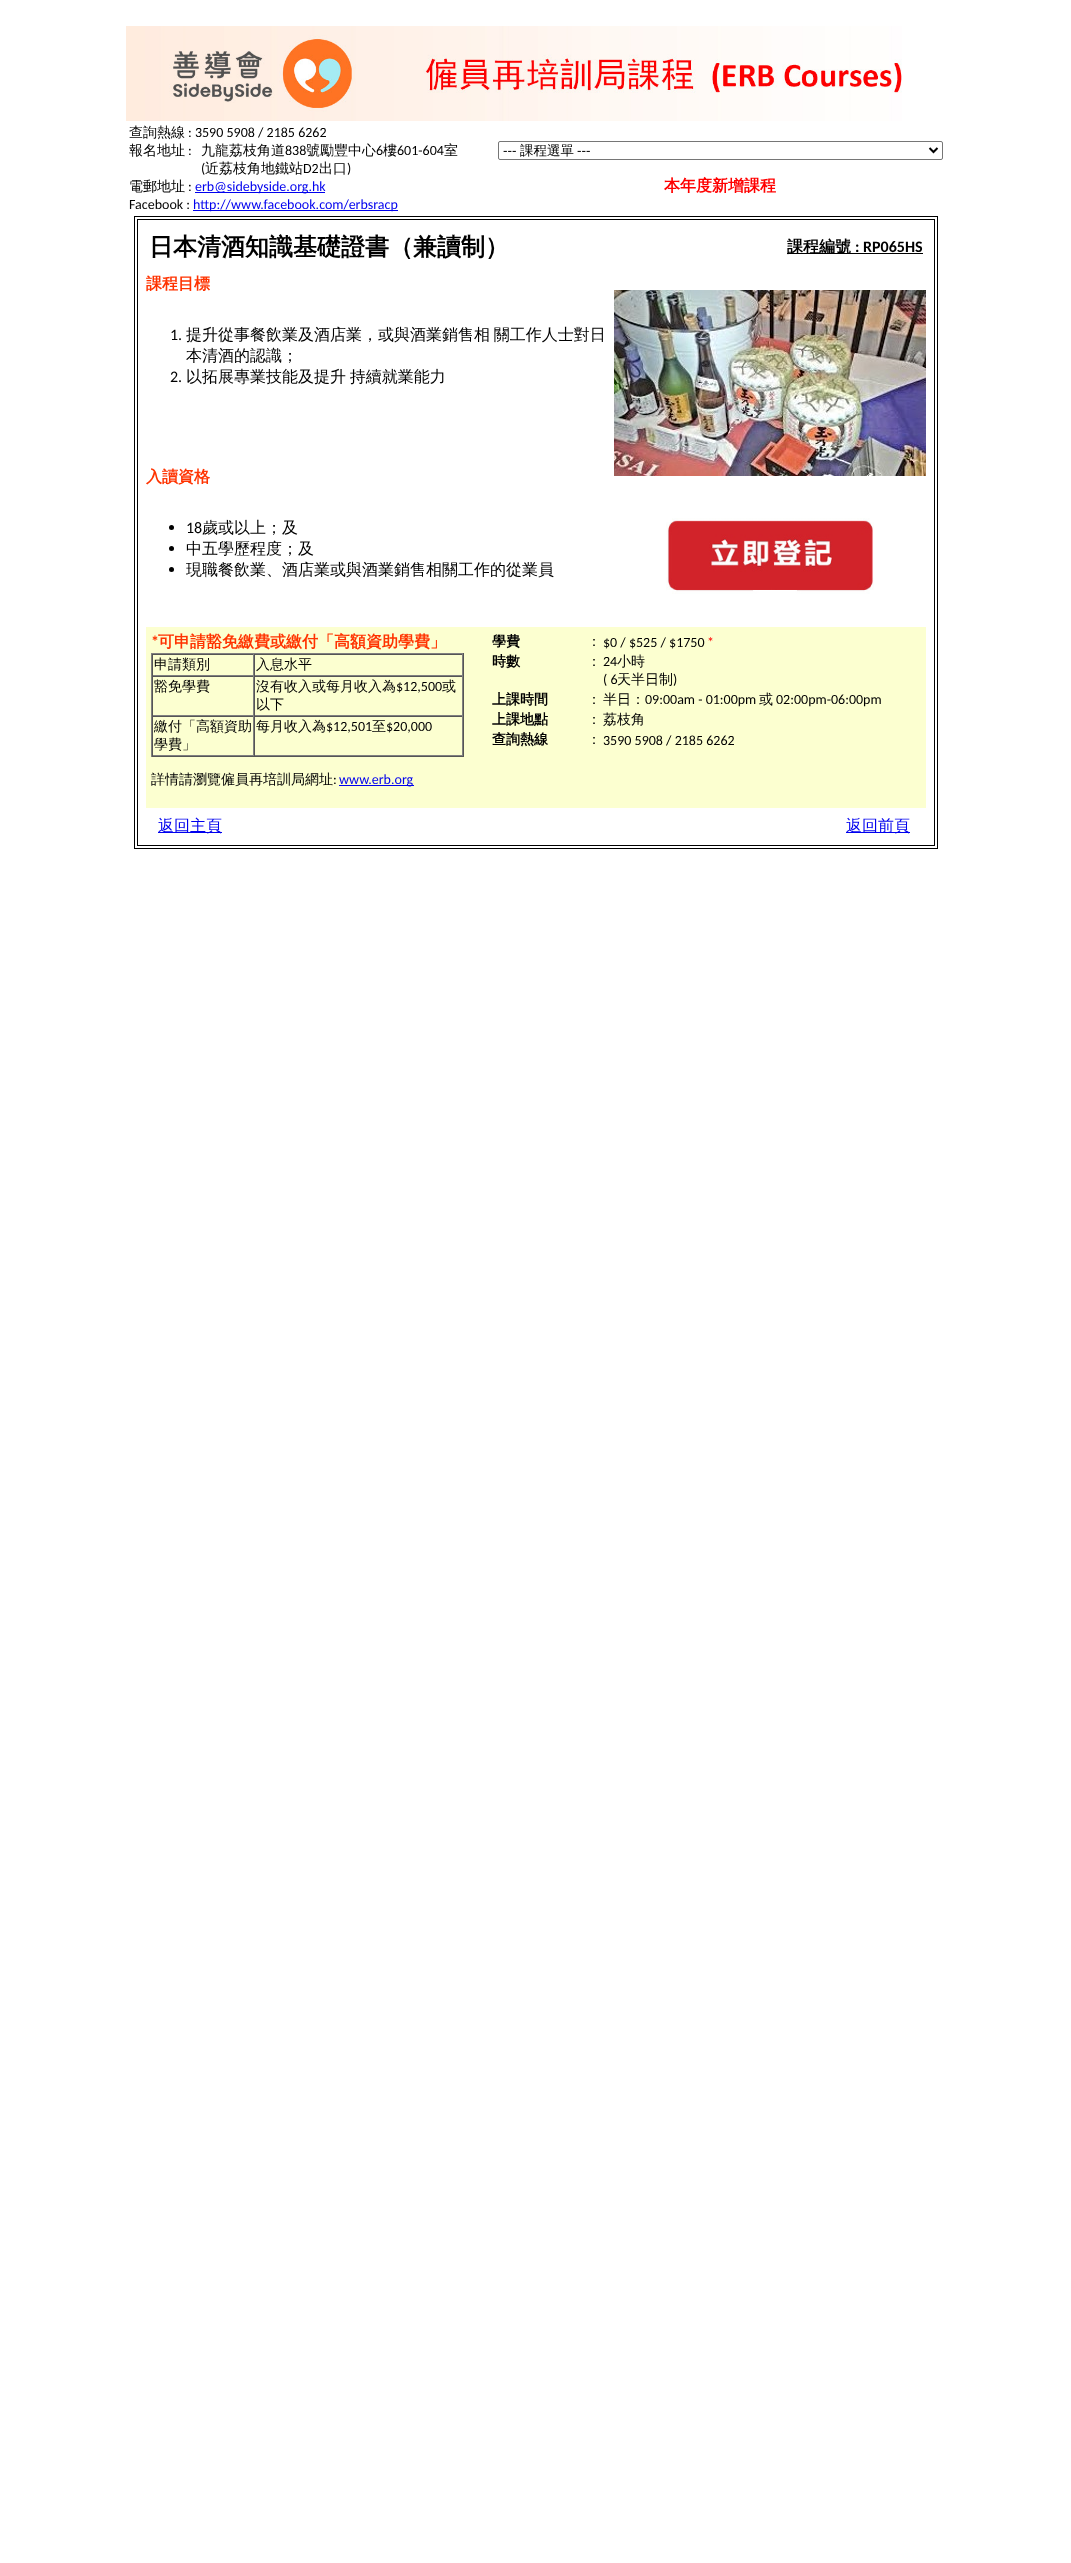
<!DOCTYPE html>
<meta charset="utf-8">
<style>body { margin: 0 } canvas { display: block }</style>
<canvas id="canvas" width="1071" height="2563"></canvas>
<img id="img1" src="images/1.png" hidden>
<img id="img2" src="images/2.png" hidden>
<img id="img3" src="images/3.png" hidden>
<script>
window.onload = function () {
    const canvas = document.getElementById('canvas');
    const context = canvas.getContext('2d');
    context.miterLimit = 4;
    context.fontKerning = 'normal';

    context.fillStyle = 'rgb(255, 255, 255)';
    context.fillRect(0, 0, 1071, 2563);
    context.drawImage(document.getElementById('img1'), 126, 26, 776, 95);
    context.fillStyle = 'rgb(0, 0, 238)';
    context.fillRect(195, 192, 130, 1);
    context.fillRect(193, 210, 205, 1);
    context.beginPath();
    context.roundRect(498.5, 141.5, 444, 18, 1.5);
    context.strokeStyle = 'rgb(118, 118, 118)';
    context.stroke();
    context.beginPath();
    context.moveTo(929.5, 148);
    context.lineTo(933.5, 152);
    context.lineTo(937.5, 148);
    context.strokeStyle = 'rgb(0, 0, 0)';
    context.lineWidth = 2;
    context.stroke();
    context.lineWidth = 1;
    context.strokeRect(134.5, 216.5, 803, 632);
    context.strokeRect(137.5, 219.5, 797, 626);
    context.fillStyle = 'rgb(0, 0, 0)';
    context.fillRect(787, 253, 136, 1);
    context.drawImage(document.getElementById('img2'), 614, 290, 312, 186);
    context.drawImage(document.getElementById('img3'), 666, 518, 208, 76);
    context.beginPath();
    context.arc(171.5, 527.5, 2.5, 0, 2 * Math.PI);
    context.fill();
    context.beginPath();
    context.arc(171.5, 548.5, 2.5, 0, 2 * Math.PI);
    context.fill();
    context.beginPath();
    context.arc(171.5, 569.5, 2.5, 0, 2 * Math.PI);
    context.fill();
    context.fillStyle = 'rgb(252, 255, 208)';
    context.fillRect(146, 627, 780, 181);
    context.fillStyle = 'rgb(128, 128, 128)';
    context.fillRect(151, 653, 313, 1);
    context.fillStyle = 'rgb(85, 85, 85)';
    context.fillRect(463, 653, 1, 104);
    context.fillRect(151, 756, 313, 1);
    context.fillStyle = 'rgb(128, 128, 128)';
    context.fillRect(151, 653, 1, 104);
    context.fillStyle = 'rgb(85, 85, 85)';
    context.fillRect(152, 654, 311, 1);
    context.fillStyle = 'rgb(128, 128, 128)';
    context.fillRect(253, 654, 1, 22);
    context.fillRect(152, 675, 102, 1);
    context.fillStyle = 'rgb(85, 85, 85)';
    context.fillRect(152, 654, 1, 22);
    context.fillStyle = 'rgb(128, 128, 128)';
    context.fillRect(462, 654, 1, 22);
    context.fillRect(254, 675, 209, 1);
    context.fillStyle = 'rgb(85, 85, 85)';
    context.fillRect(254, 654, 1, 22);
    context.fillRect(152, 676, 311, 1);
    context.fillStyle = 'rgb(128, 128, 128)';
    context.fillRect(253, 676, 1, 40);
    context.fillRect(152, 715, 102, 1);
    context.fillStyle = 'rgb(85, 85, 85)';
    context.fillRect(152, 676, 1, 40);
    context.fillStyle = 'rgb(128, 128, 128)';
    context.fillRect(462, 676, 1, 40);
    context.fillRect(254, 715, 209, 1);
    context.fillStyle = 'rgb(85, 85, 85)';
    context.fillRect(254, 676, 1, 40);
    context.fillRect(152, 716, 311, 1);
    context.fillStyle = 'rgb(128, 128, 128)';
    context.fillRect(253, 716, 1, 40);
    context.fillRect(152, 755, 102, 1);
    context.fillStyle = 'rgb(85, 85, 85)';
    context.fillRect(152, 716, 1, 40);
    context.fillStyle = 'rgb(128, 128, 128)';
    context.fillRect(462, 716, 1, 40);
    context.fillRect(254, 755, 209, 1);
    context.fillStyle = 'rgb(85, 85, 85)';
    context.fillRect(254, 716, 1, 40);
    context.fillStyle = 'rgb(0, 0, 238)';
    context.fillRect(339, 785, 75, 1);
    context.fillRect(158, 832, 64, 1);
    context.fillRect(846, 832, 64, 1);
    context.font = '500 14px WenQuanYi Zen Hei';
    context.fillStyle = 'rgb(0, 0, 0)';
    context.fillText('查詢熱線', 129, 137);
    context.font = '14px Carlito';
    context.fillText(': 3590 5908 / 2185 6262', 188, 137);
    context.font = '500 14px WenQuanYi Zen Hei';
    context.fillText('報名地址', 129, 155);
    context.font = '14px Carlito';
    context.fillText(':', 188, 155);
    context.font = '500 14px WenQuanYi Zen Hei';
    context.fillText('九龍荔枝角道', 201, 155);
    context.font = '14px Carlito';
    context.fillText('838', 285, 155);
    context.font = '500 14px WenQuanYi Zen Hei';
    context.fillText('號勵豐中心', 306, 155);
    context.font = '14px Carlito';
    context.fillText('6', 376, 155);
    context.font = '500 14px WenQuanYi Zen Hei';
    context.fillText('樓', 383, 155);
    context.font = '14px Carlito';
    context.fillText('601-604', 397, 155);
    context.font = '500 14px WenQuanYi Zen Hei';
    context.fillText('室', 444, 155);
    context.font = '14px Carlito';
    context.fillText('(', 201, 173);
    context.font = '500 14px WenQuanYi Zen Hei';
    context.fillText('近荔枝角地鐵站', 205, 173);
    context.font = '14px Carlito';
    context.fillText('D2', 303, 173);
    context.font = '500 14px WenQuanYi Zen Hei';
    context.fillText('出口', 319, 173);
    context.font = '14px Carlito';
    context.fillText(')', 347, 173);
    context.font = '500 14px WenQuanYi Zen Hei';
    context.fillText('電郵地址', 129, 191);
    context.font = '14px Carlito';
    context.fillText(':', 188, 191);
    context.fillStyle = 'rgb(0, 0, 238)';
    context.fillText('erb@sidebyside.org.hk', 195, 191);
    context.fillStyle = 'rgb(0, 0, 0)';
    context.fillText('Facebook :', 129, 209);
    context.fillStyle = 'rgb(0, 0, 238)';
    context.fillText('http://www.facebook.com/erbsracp', 193, 209);
    context.font = '13.5px Liberation Sans';
    context.fillStyle = 'rgb(0, 0, 0)';
    context.fillText('---', 503, 155);
    context.font = '500 13.5px WenQuanYi Zen Hei';
    context.fillText('課程選單', 520, 155);
    context.font = '13.5px Liberation Sans';
    context.fillText('---', 577, 155);
    context.font = 'bold 16px WenQuanYi Zen Hei';
    context.fillStyle = 'rgb(255, 0, 0)';
    context.fillText('本年度新增課程', 664, 191);
    context.font = 'bold 24px WenQuanYi Zen Hei';
    context.fillStyle = 'rgb(0, 0, 0)';
    context.fillText('日本清酒知識基礎證書（兼讀制）', 149, 255);
    context.font = 'bold 16px WenQuanYi Zen Hei';
    context.fillText('課程編號', 787, 252);
    context.font = 'bold 16px Carlito';
    context.fillText(': RP065HS', 855, 252);
    context.font = 'bold 16px WenQuanYi Zen Hei';
    context.fillStyle = 'rgb(255, 51, 0)';
    context.fillText('課程目標', 146, 289);
    context.font = '16px Carlito';
    context.fillStyle = 'rgb(0, 0, 0)';
    context.fillText('1.', 170, 340);
    context.wordSpacing = '-1px';
    context.font = '500 16px WenQuanYi Zen Hei';
    context.fillText('提升從事餐飲業及酒店業，或與酒業銷售相 關工作人士對日', 186, 340);
    context.wordSpacing = '0px';
    context.fillText('本清酒的認識；', 186, 361);
    context.font = '16px Carlito';
    context.fillText('2.', 170, 382);
    context.wordSpacing = '-1px';
    context.font = '500 16px WenQuanYi Zen Hei';
    context.fillText('以拓展專業技能及提升 持續就業能力', 186, 382);
    context.wordSpacing = '0px';
    context.font = 'bold 16px WenQuanYi Zen Hei';
    context.fillStyle = 'rgb(255, 51, 0)';
    context.fillText('入讀資格', 146, 482);
    context.font = '16px Carlito';
    context.fillStyle = 'rgb(0, 0, 0)';
    context.fillText('18', 186, 533);
    context.font = '500 16px WenQuanYi Zen Hei';
    context.fillText('歲或以上；及', 202, 533);
    context.fillText('中五學歷程度；及', 186, 554);
    context.fillText('現職餐飲業、酒店業或與酒業銷售相關工作的從業員', 186, 575);
    context.font = 'bold 16px Carlito';
    context.fillStyle = 'rgb(255, 51, 0)';
    context.fillText('*', 151, 647);
    context.font = 'bold 16px WenQuanYi Zen Hei';
    context.fillText('可申請豁免繳費或繳付「高額資助學費」', 158, 647);
    context.font = '500 14px WenQuanYi Zen Hei';
    context.fillStyle = 'rgb(0, 0, 0)';
    context.fillText('申請類別', 154, 669);
    context.fillText('入息水平', 256, 669);
    context.fillText('豁免學費', 154, 691);
    context.fillText('沒有收入或每月收入為', 256, 691);
    context.font = '14px Carlito';
    context.fillText('$12,500', 396, 691);
    context.font = '500 14px WenQuanYi Zen Hei';
    context.fillText('或', 442, 691);
    context.fillText('以下', 256, 709);
    context.fillText('繳付「高額資助', 154, 731);
    context.fillText('學費」', 154, 749);
    context.fillText('每月收入為', 256, 731);
    context.font = '14px Carlito';
    context.fillText('$12,501', 326, 731);
    context.font = '500 14px WenQuanYi Zen Hei';
    context.fillText('至', 372, 731);
    context.font = '14px Carlito';
    context.fillText('$20,000', 386, 731);
    context.font = '500 14px WenQuanYi Zen Hei';
    context.fillText('詳情請瀏覽僱員再培訓局網址', 151, 784);
    context.font = '14px Carlito';
    context.fillText(':', 333, 784);
    context.fillStyle = 'rgb(0, 0, 238)';
    context.fillText('www.erb.org', 339, 784);
    context.font = 'bold 14px WenQuanYi Zen Hei';
    context.fillStyle = 'rgb(0, 0, 0)';
    context.fillText('學費', 492, 646);
    context.font = '500 14px WenQuanYi Zen Hei';
    context.fillText('：', 587, 646);
    context.font = '14px Carlito';
    context.fillText('$0 / $525 / $1750', 603, 647);
    context.fillStyle = 'rgb(255, 0, 0)';
    context.fillText('*', 707, 647);
    context.font = 'bold 14px WenQuanYi Zen Hei';
    context.fillStyle = 'rgb(0, 0, 0)';
    context.fillText('時數', 492, 666);
    context.font = '500 14px WenQuanYi Zen Hei';
    context.fillText('：', 587, 666);
    context.font = '14px Carlito';
    context.fillText('24', 603, 666);
    context.font = '500 14px WenQuanYi Zen Hei';
    context.fillText('小時', 617, 666);
    context.font = '14px Carlito';
    context.fillText('( 6', 603, 684);
    context.font = '500 14px WenQuanYi Zen Hei';
    context.fillText('天半日制', 617, 684);
    context.font = '14px Carlito';
    context.fillText(')', 673, 684);
    context.font = 'bold 14px WenQuanYi Zen Hei';
    context.fillText('上課時間', 492, 704);
    context.font = '500 14px WenQuanYi Zen Hei';
    context.fillText('：', 587, 704);
    context.fillText('半日：', 603, 704);
    context.font = '14px Carlito';
    context.fillText('09:00am - 01:00pm', 645, 704);
    context.font = '500 14px WenQuanYi Zen Hei';
    context.fillText('或', 759, 704);
    context.font = '14px Carlito';
    context.fillText('02:00pm-06:00pm', 776, 704);
    context.font = 'bold 14px WenQuanYi Zen Hei';
    context.fillText('上課地點', 492, 724);
    context.font = '500 14px WenQuanYi Zen Hei';
    context.fillText('：', 587, 724);
    context.fillText('荔枝角', 603, 724);
    context.font = 'bold 14px WenQuanYi Zen Hei';
    context.fillText('查詢熱線', 492, 744);
    context.font = '500 14px WenQuanYi Zen Hei';
    context.fillText('：', 587, 744);
    context.font = '14px Carlito';
    context.fillText('3590 5908 / 2185 6262', 603, 745);
    context.font = '500 16px WenQuanYi Zen Hei';
    context.fillStyle = 'rgb(0, 0, 238)';
    context.fillText('返回主頁', 158, 831);
    context.fillText('返回前頁', 846, 831);
};
</script>
